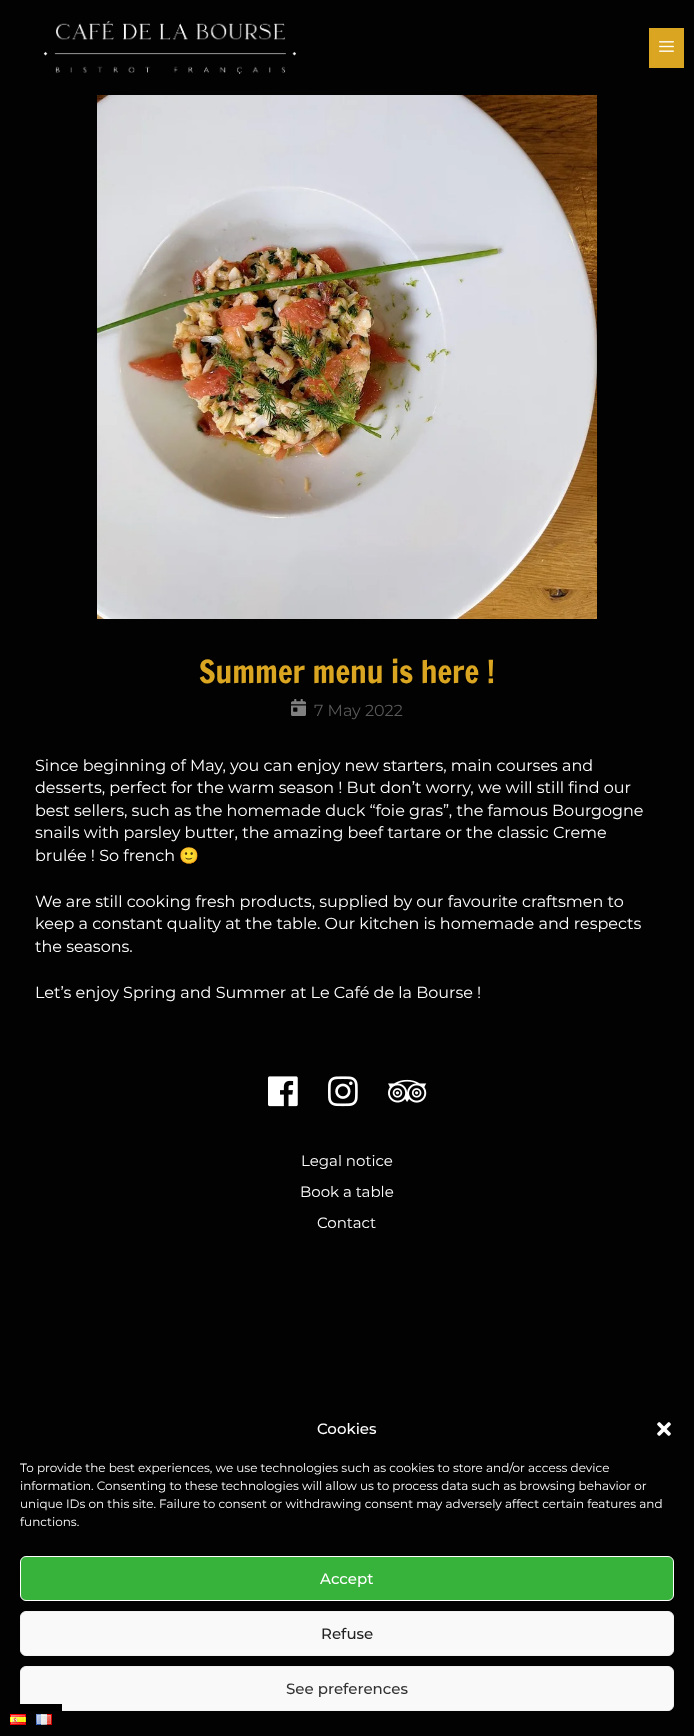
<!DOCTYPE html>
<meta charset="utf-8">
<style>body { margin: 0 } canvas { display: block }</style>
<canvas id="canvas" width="694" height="1736"></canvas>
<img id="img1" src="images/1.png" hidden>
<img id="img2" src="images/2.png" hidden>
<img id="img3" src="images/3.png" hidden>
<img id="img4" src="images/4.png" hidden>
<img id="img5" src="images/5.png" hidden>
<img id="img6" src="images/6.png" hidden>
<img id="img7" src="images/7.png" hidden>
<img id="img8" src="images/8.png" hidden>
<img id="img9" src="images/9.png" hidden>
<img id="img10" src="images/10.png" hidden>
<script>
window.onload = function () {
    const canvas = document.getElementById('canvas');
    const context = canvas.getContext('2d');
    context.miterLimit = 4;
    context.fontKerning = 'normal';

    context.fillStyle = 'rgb(2, 2, 2)';
    context.fillRect(0, 0, 694, 1736);
    context.drawImage(document.getElementById('img1'), 43, 21, 254, 53);
    context.fillStyle = 'rgb(218, 165, 32)';
    context.fillRect(649, 28, 35, 40);
    context.drawImage(document.getElementById('img2'), 659, 41, 15, 11);
    context.fillStyle = 'rgb(249, 249, 249)';
    context.beginPath();
    context.roundRect(20.5, 1666.5, 653, 44, 5.5);
    context.fill();
    context.strokeStyle = 'rgb(242, 242, 242)';
    context.stroke();
    context.fillStyle = 'rgb(0, 0, 0)';
    context.fillRect(20, 1704, 42, 7);
    context.drawImage(document.getElementById('img3'), 10, 1714, 16, 11);
    context.drawImage(document.getElementById('img4'), 36, 1714, 16, 11);
    context.drawImage(document.getElementById('img5'), 97, 95, 500, 524);
    context.drawImage(document.getElementById('img6'), 291, 699, 15, 17);
    context.drawImage(document.getElementById('img7'), 268, 1076, 30, 31);
    context.drawImage(document.getElementById('img8'), 328, 1076, 30, 31);
    context.drawImage(document.getElementById('img9'), 388, 1079, 39, 24);
    context.drawImage(document.getElementById('img10'), 657, 1422, 14, 14);
    context.fillStyle = 'rgb(55, 178, 59)';
    context.beginPath();
    context.roundRect(20.5, 1556.5, 653, 44, 5.5);
    context.fill();
    context.strokeStyle = 'rgb(255, 255, 255)';
    context.stroke();
    context.fillStyle = 'rgb(249, 249, 249)';
    context.beginPath();
    context.roundRect(20.5, 1611.5, 653, 44, 5.5);
    context.fill();
    context.strokeStyle = 'rgb(242, 242, 242)';
    context.stroke();
    context.font = '31px Francois One';
    context.fillStyle = 'rgb(218, 165, 32)';
    context.fillText('Summer menu is here !', 199, 683);
    context.font = '16px Montserrat';
    context.fillStyle = 'rgb(89, 89, 89)';
    context.fillText('7 May 2022', 314, 716);
    context.fillStyle = 'rgb(255, 255, 255)';
    context.fillText('Since beginning of May, you can enjoy new starters, main courses and', 35, 771);
    context.fillText('desserts, perfect for the warm season ! But don’t worry, we will still find our', 35, 793);
    context.fillText('best sellers, such as the homemade duck “foie gras”, the famous Bourgogne', 35, 816);
    context.fillText('snails with parsley butter, the amazing beef tartare or the classic Creme', 35, 838);
    context.fillText('brulée ! So french', 35, 861);
    context.font = '16px Noto Color Emoji';
    context.fillText('🙂', 179, 861);
    context.font = '16px Montserrat';
    context.fillText('We are still cooking fresh products, supplied by our favourite craftsmen to', 35, 907);
    context.fillText('keep a constant quality at the table. Our kitchen is homemade and respects', 35, 929);
    context.fillText('the seasons.', 35, 952);
    context.fillText('Let’s enjoy Spring and Summer at Le Café de la Bourse !', 35, 998);
    context.font = '15px Montserrat';
    context.fillText('Legal notice', 301, 1166);
    context.fillText('Book a table', 300, 1197);
    context.fillText('Contact', 317, 1228);
    context.font = '500 15px Montserrat';
    context.fillText('Cookies', 317, 1434);
    context.font = '12px Montserrat';
    context.fillText('To provide the best experiences, we use technologies such as cookies to store and/or access device', 20, 1472);
    context.fillText('information. Consenting to these technologies will allow us to process data such as browsing behavior or', 20, 1490);
    context.fillText('unique IDs on this site. Failure to consent or withdrawing consent may adversely affect certain features and', 20, 1508);
    context.fillText('functions.', 20, 1526);
    context.font = '500 15px Montserrat';
    context.fillText('Accept', 320, 1584);
    context.fillStyle = 'rgb(34, 34, 34)';
    context.fillText('Refuse', 321, 1639);
    context.fillStyle = 'rgb(51, 51, 51)';
    context.fillText('See preferences', 286, 1694);
};
</script>
